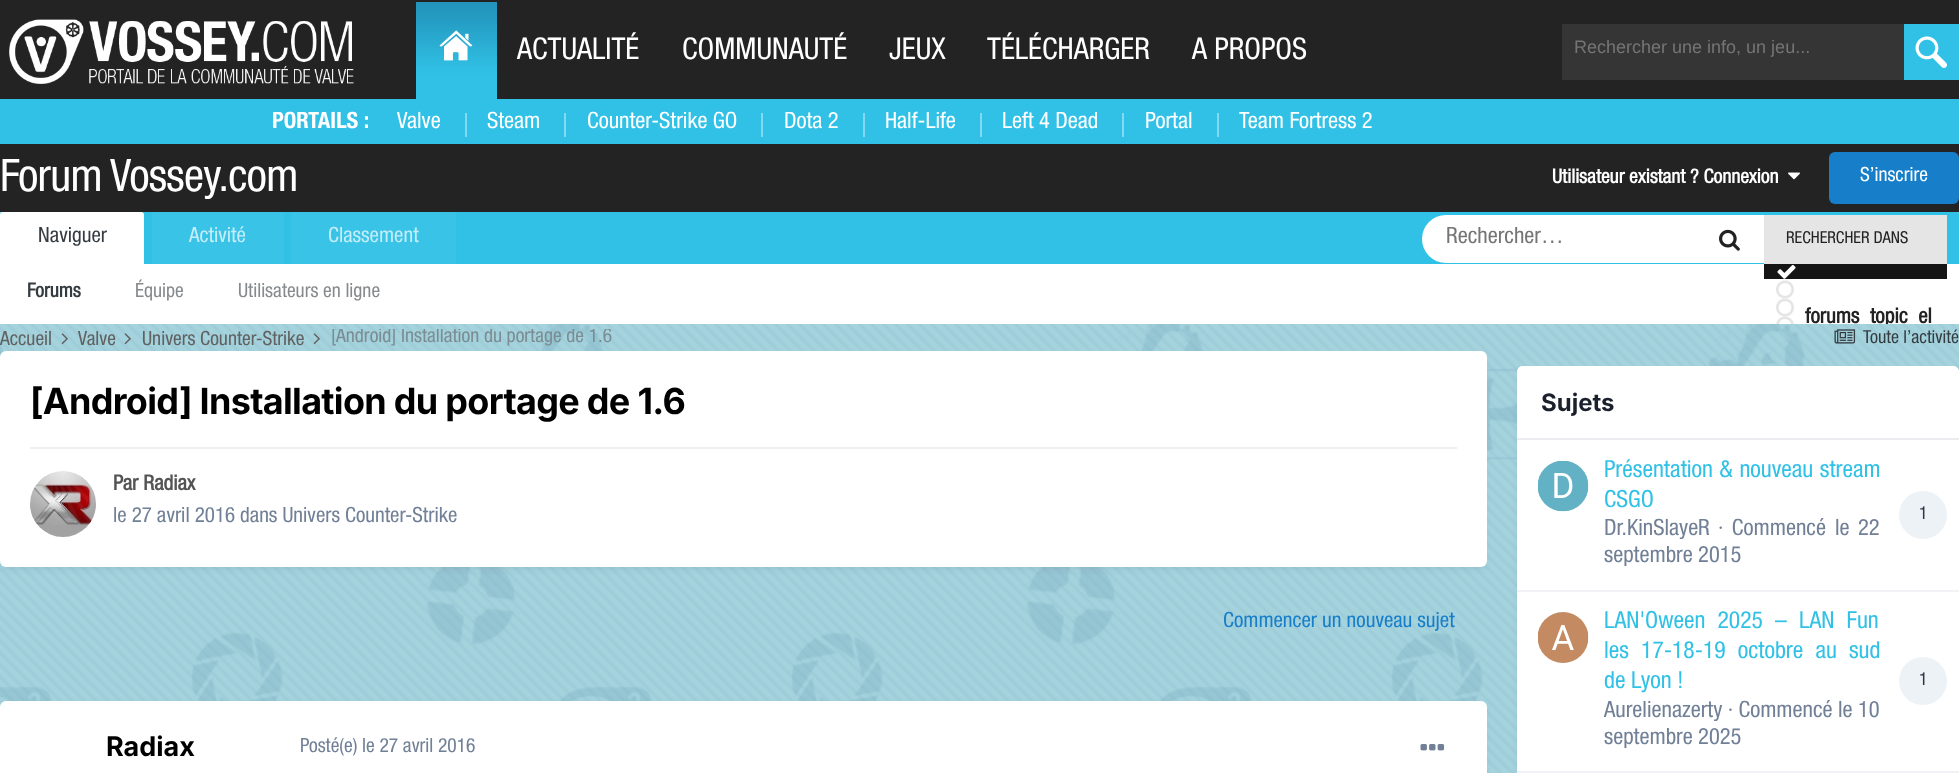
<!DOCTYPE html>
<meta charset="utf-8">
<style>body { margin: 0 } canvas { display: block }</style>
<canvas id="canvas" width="1959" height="773"></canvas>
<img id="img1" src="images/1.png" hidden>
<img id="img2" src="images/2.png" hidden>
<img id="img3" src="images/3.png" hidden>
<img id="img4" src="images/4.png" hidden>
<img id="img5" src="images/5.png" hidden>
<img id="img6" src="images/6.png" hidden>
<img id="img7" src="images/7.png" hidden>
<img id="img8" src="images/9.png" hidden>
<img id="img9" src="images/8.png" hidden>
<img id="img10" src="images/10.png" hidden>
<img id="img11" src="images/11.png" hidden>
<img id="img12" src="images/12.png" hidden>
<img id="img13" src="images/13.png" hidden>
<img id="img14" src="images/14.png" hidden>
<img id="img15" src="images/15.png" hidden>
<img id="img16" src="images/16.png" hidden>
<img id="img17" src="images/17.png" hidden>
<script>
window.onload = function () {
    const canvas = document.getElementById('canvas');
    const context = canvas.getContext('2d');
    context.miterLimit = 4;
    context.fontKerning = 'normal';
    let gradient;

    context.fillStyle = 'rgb(255, 255, 255)';
    context.fillRect(0, 0, 1959, 773);
    context.drawImage(document.getElementById('img1'), 0, 212, 1959, 561);
    context.fillStyle = 'rgb(35, 35, 35)';
    context.fillRect(0, 0, 1959, 212);
    context.drawImage(document.getElementById('img2'), 9, 19, 345, 65);
    gradient = context.createLinearGradient(456, 1.5, 456, 99);
    gradient.addColorStop(0, 'rgb(35, 147, 187)');
    gradient.addColorStop(0.17, 'rgb(37, 155, 194)');
    gradient.addColorStop(0.68, 'rgb(48, 190, 227)');
    gradient.addColorStop(0.76, 'rgb(49, 193, 230)');
    gradient.addColorStop(1, 'rgb(49, 193, 230)');
    context.fillStyle = gradient;
    context.fillRect(416, 2, 81, 97);
    context.drawImage(document.getElementById('img3'), 439, 30, 34, 31);
    context.fillStyle = 'rgb(49, 193, 230)';
    context.fillRect(0, 99, 1959, 45);
    context.fillStyle = 'rgb(131, 218, 240)';
    context.fillRect(465, 113, 2, 24);
    context.fillRect(564, 113, 2, 24);
    context.fillRect(761, 113, 2, 24);
    context.fillRect(863, 113, 2, 24);
    context.fillRect(980, 113, 2, 24);
    context.fillRect(1122, 113, 2, 24);
    context.fillRect(1217, 113, 2, 24);
    context.fillStyle = 'rgb(53, 53, 53)';
    context.fillRect(1562, 24, 342, 56);
    context.fillStyle = 'rgb(49, 193, 230)';
    context.fillRect(1904, 24, 55, 56);
    context.drawImage(document.getElementById('img4'), 1915, 36, 32, 32);
    context.drawImage(document.getElementById('img5'), 1788, 172, 12, 8);
    context.fillStyle = 'rgb(23, 126, 201)';
    context.beginPath();
    context.roundRect(1829, 152, 130, 52, 6);
    context.fill();
    context.fillStyle = 'rgb(49, 193, 230)';
    context.beginPath();
    context.roundRect(0, 212, 1959, 112, [3, 3, 0, 0]);
    context.fill();
    context.fillStyle = 'rgb(57, 195, 231)';
    context.beginPath();
    context.roundRect(152, 212, 132, 52, [3, 3, 0, 0]);
    context.fill();
    context.beginPath();
    context.roundRect(291, 212, 165, 52, [3, 3, 0, 0]);
    context.fill();
    context.fillStyle = 'rgb(255, 255, 255)';
    context.beginPath();
    context.roundRect(0, 212, 144, 52, [3, 3, 0, 0]);
    context.fill();
    context.fillRect(0, 264, 1959, 60);
    context.beginPath();
    context.roundRect(1422, 215, 525, 48, 24);
    context.fill();
    context.drawImage(document.getElementById('img6'), 1719, 229, 21, 22);
    context.fillStyle = 'rgb(229, 229, 229)';
    context.fillRect(1764, 215, 183, 49);
    context.fillStyle = 'rgb(21, 21, 21)';
    context.fillRect(1764, 264, 183, 15);
    context.drawImage(document.getElementById('img7'), 1777, 264, 19, 15);
    context.drawImage(document.getElementById('img8'), 1776, 280, 18, 19);
    context.drawImage(document.getElementById('img9'), 1776, 298, 18, 19);
    context.drawImage(document.getElementById('img10'), 1776, 316, 18, 8);
    context.fillStyle = 'rgba(192, 192, 192, 0.4)';
    context.fillRect(0, 324, 1959, 449);
    context.drawImage(document.getElementById('img11'), 61, 333, 7, 12);
    context.drawImage(document.getElementById('img12'), 124, 333, 7, 12);
    context.drawImage(document.getElementById('img11'), 313, 333, 7, 12);
    context.drawImage(document.getElementById('img13'), 1834, 329, 22, 15);
    context.fillStyle = 'rgba(45, 55, 72, 0.1)';
    context.filter = 'blur(3px)';
    context.beginPath();
    context.roundRect(2, 356, 1483, 213, 5);
    context.fill();
    context.filter = 'none';
    context.fillStyle = 'rgb(255, 255, 255)';
    context.beginPath();
    context.roundRect(0, 351, 1487, 216, 6);
    context.fill();
    context.fillStyle = 'rgb(239, 239, 240)';
    context.fillRect(30, 447, 1427, 2);
    context.drawImage(document.getElementById('img14'), 30, 471, 66, 66);
    context.fillStyle = 'rgba(45, 55, 72, 0.1)';
    context.filter = 'blur(3px)';
    context.beginPath();
    context.roundRect(2, 705, 1483, 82, 5);
    context.fill();
    context.filter = 'none';
    context.fillStyle = 'rgb(255, 255, 255)';
    context.beginPath();
    context.roundRect(0, 701, 1487, 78, 6);
    context.fill();
    context.drawImage(document.getElementById('img15'), 1420, 744, 25, 7);
    context.fillStyle = 'rgba(45, 55, 72, 0.1)';
    context.filter = 'blur(3px)';
    context.beginPath();
    context.roundRect(1518, 371, 440, 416, 5);
    context.fill();
    context.filter = 'none';
    context.fillStyle = 'rgb(255, 255, 255)';
    context.beginPath();
    context.roundRect(1517, 366, 442, 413, 6);
    context.fill();
    context.beginPath();
    context.roundRect(1517, 366, 442, 74, [6, 6, 0, 0]);
    context.fill();
    context.fillStyle = 'rgb(234, 236, 239)';
    context.fillRect(1517, 438, 442, 2);
    context.fillStyle = 'rgb(241, 242, 245)';
    context.fillRect(1517, 590, 442, 2);
    context.drawImage(document.getElementById('img16'), 1538, 461, 51, 51);
    context.fillStyle = 'rgb(237, 242, 247)';
    context.beginPath();
    context.arc(1923, 515, 24, 0, 2 * Math.PI);
    context.fill();
    context.fillStyle = 'rgb(241, 242, 245)';
    context.fillRect(1517, 771, 442, 2);
    context.drawImage(document.getElementById('img17'), 1538, 612, 51, 51);
    context.fillStyle = 'rgb(237, 242, 247)';
    context.beginPath();
    context.arc(1923, 681, 24, 0, 2 * Math.PI);
    context.fill();
    context.font = '30px Helvetica Neue';
    context.fillStyle = 'rgb(255, 255, 255)';
    context.fillText('ACTUALITÉ', 517, 59);
    context.fillText('COMMUNAUTÉ', 682, 59);
    context.fillText('JEUX', 889, 59);
    context.fillText('TÉLÉCHARGER', 987, 59);
    context.fillText('A PROPOS', 1192, 59);
    context.font = 'bold 22.5px "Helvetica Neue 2"';
    context.fillText('PORTAILS :', 272, 128);
    context.font = '22.5px Helvetica Neue';
    context.fillText('Valve', 397, 128);
    context.fillText('Steam', 487, 128);
    context.fillText('Counter-Strike GO', 587, 128);
    context.fillText('Dota 2', 784, 128);
    context.fillText('Half-Life', 885, 128);
    context.fillText('Left 4 Dead', 1002, 128);
    context.fillText('Portal', 1145, 128);
    context.fillText('Team Fortress 2', 1239, 128);
    context.font = '18px Liberation Sans';
    context.fillStyle = 'rgb(117, 117, 117)';
    context.fillText('Rechercher une info, un jeu...', 1574, 53);
    context.letterSpacing = '-0.75px';
    context.font = '45px Helvetica Neue';
    context.fillStyle = 'rgb(255, 255, 255)';
    context.fillText('Forum Vossey.com', 0, 191);
    context.letterSpacing = '0px';
    context.font = 'bold 19.5px Helvetica Neue';
    context.fillText('Utilisateur existant ? Connexion', 1552, 183);
    context.font = '19.5px Helvetica Neue';
    context.fillText('S’inscrire', 1860, 181);
    context.font = '21px Helvetica Neue';
    context.fillStyle = 'rgb(196, 237, 248)';
    context.fillText('Activité', 189, 242);
    context.fillText('Classement', 328, 242);
    context.fillStyle = 'rgb(53, 60, 65)';
    context.fillText('Naviguer', 38, 242);
    context.font = 'bold 19.5px Helvetica Neue';
    context.fillText('Forums', 27, 297);
    context.font = '19.5px Helvetica Neue';
    context.fillStyle = 'rgb(134, 138, 141)';
    context.fillText('Équipe', 135, 297);
    context.fillText('Utilisateurs en ligne', 238, 297);
    context.font = '22.5px Helvetica Neue';
    context.fillStyle = 'rgb(117, 117, 117)';
    context.fillText('Rechercher…', 1446, 243);
    context.font = '16.5px Helvetica Neue';
    context.fillStyle = 'rgb(34, 34, 34)';
    context.fillText('RECHERCHER DANS', 1786, 243);
    context.save();
    context.beginPath();
    context.rect(0, 0, 1959, 324);
    context.clip();
    context.font = 'bold 21px Helvetica Neue';
    context.fillText('forums_topic_el', 1805, 323);
    context.restore();
    context.font = '19.5px Helvetica Neue';
    context.fillStyle = 'rgb(97, 97, 97)';
    context.fillText('Accueil', 0, 345);
    context.fillText('Valve', 78, 345);
    context.fillText('Univers Counter-Strike', 142, 345);
    context.save();
    context.beginPath();
    context.rect(330, 329, 282, 22);
    context.clip();
    context.fillStyle = 'rgb(123, 141, 146)';
    context.fillText('[Android] Installation du portage de 1.6', 331, 342);
    context.restore();
    context.font = '18px Helvetica Neue';
    context.fillStyle = 'rgb(53, 60, 65)';
    context.fillText('Toute l’activité', 1863, 343);
    context.letterSpacing = '-0.7px';
    context.font = 'bold 36px Inter';
    context.fillStyle = 'rgb(0, 0, 0)';
    context.fillText('[Android] Installation du portage de 1.6', 30, 414);
    context.letterSpacing = '0px';
    context.font = 'bold 21px Helvetica Neue';
    context.fillStyle = 'rgb(84, 84, 84)';
    context.fillText('Par Radiax', 113, 490);
    context.font = '21px Helvetica Neue';
    context.fillStyle = 'rgb(113, 128, 150)';
    context.fillText('le 27 avril 2016 dans Univers Counter-Strike', 113, 522);
    context.fillStyle = 'rgb(23, 126, 201)';
    context.fillText('Commencer un nouveau sujet', 1223, 627);
    context.font = 'bold 27px Inter';
    context.fillStyle = 'rgb(0, 0, 0)';
    context.fillText('Radiax', 106, 756);
    context.font = '19.5px Helvetica Neue';
    context.fillStyle = 'rgb(113, 128, 150)';
    context.fillText('Posté(e) le 27 avril 2016', 300, 752);
    context.font = 'bold 24px Inter';
    context.fillStyle = 'rgb(26, 32, 44)';
    context.fillText('Sujets', 1541, 411);
    context.wordSpacing = '1px';
    context.font = '23.6px Helvetica Neue';
    context.fillStyle = 'rgb(49, 193, 230)';
    context.fillText('Présentation & nouveau stream', 1604, 477);
    context.wordSpacing = '0px';
    context.fillText('CSGO', 1604, 507);
    context.font = '18px Helvetica Neue';
    context.fillStyle = 'rgb(45, 55, 72)';
    context.fillText('1', 1919, 519);
    context.font = '22.5px Helvetica Neue';
    context.fillStyle = 'rgb(113, 128, 150)';
    context.fillText('Dr.KinSlayeR', 1604, 535);
    context.wordSpacing = '3px';
    context.fillText('· Commencé', 1718, 535);
    context.fillText('le 22', 1835, 535);
    context.wordSpacing = '0px';
    context.fillText('septembre 2015', 1604, 562);
    context.wordSpacing = '6.5px';
    context.font = '23.6px Helvetica Neue';
    context.fillStyle = 'rgb(49, 193, 230)';
    context.fillText('LAN\'Oween 2025 – LAN Fun', 1604, 628);
    context.fillText('les 17-18-19 octobre au sud', 1604, 658);
    context.wordSpacing = '0px';
    context.fillText('de Lyon !', 1604, 688);
    context.font = '18px Helvetica Neue';
    context.fillStyle = 'rgb(45, 55, 72)';
    context.fillText('1', 1919, 685);
    context.font = '22.5px Helvetica Neue';
    context.fillStyle = 'rgb(113, 128, 150)';
    context.fillText('Aurelienazerty · Commencé le 10', 1604, 717);
    context.fillText('septembre 2025', 1604, 744);
};
</script>
